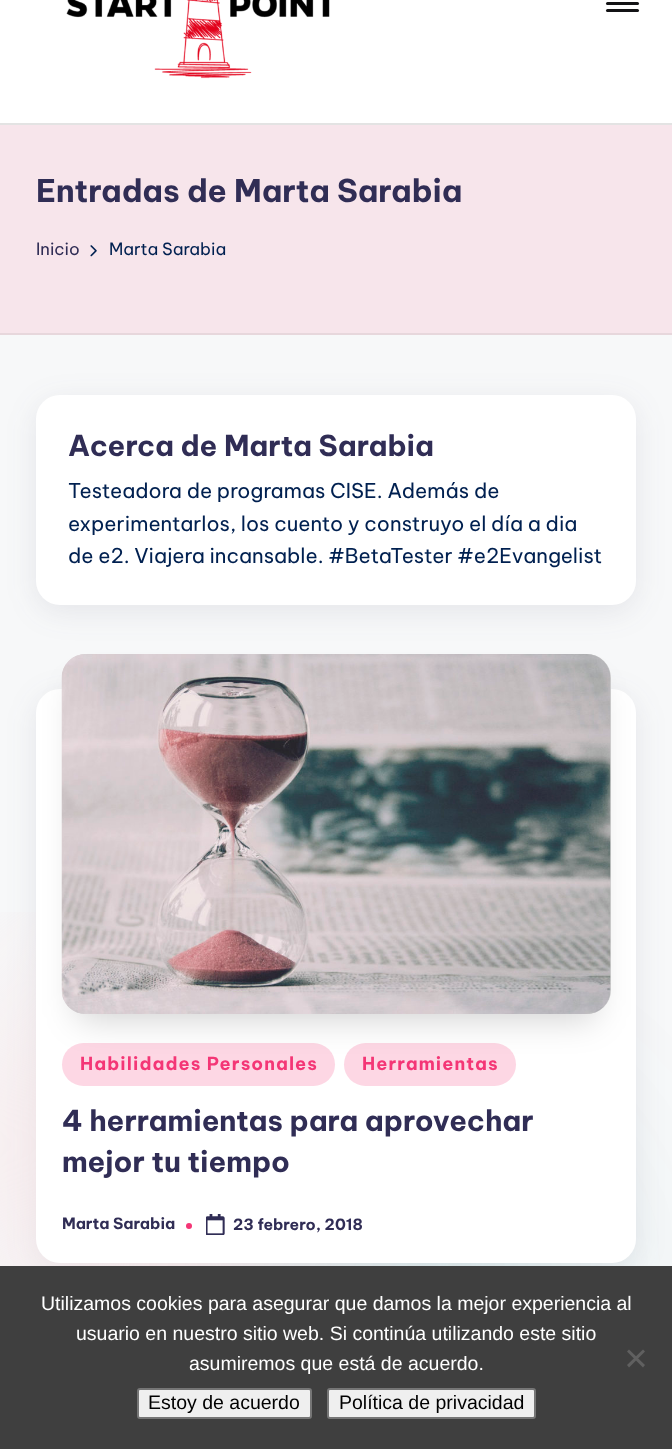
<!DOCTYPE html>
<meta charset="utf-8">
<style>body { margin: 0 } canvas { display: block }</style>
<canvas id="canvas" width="672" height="1449"></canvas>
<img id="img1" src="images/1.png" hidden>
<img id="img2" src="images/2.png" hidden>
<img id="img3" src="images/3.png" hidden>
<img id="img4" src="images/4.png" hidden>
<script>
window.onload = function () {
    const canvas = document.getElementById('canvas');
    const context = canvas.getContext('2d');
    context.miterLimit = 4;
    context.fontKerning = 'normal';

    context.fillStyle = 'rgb(247, 248, 249)';
    context.fillRect(0, 0, 672, 1449);
    context.fillStyle = 'rgb(255, 255, 255)';
    context.fillRect(0, 0, 672, 123);
    context.fillStyle = 'rgb(227, 227, 227)';
    context.fillRect(0, 123, 672, 2);
    context.drawImage(document.getElementById('img1'), 66, 0, 264, 79);
    context.fillStyle = 'rgb(19, 19, 21)';
    context.beginPath();
    context.roundRect(606, 2, 33, 3, 1.5);
    context.fill();
    context.beginPath();
    context.roundRect(606, 9, 33, 3, 1.5);
    context.fill();
    context.fillStyle = 'rgb(247, 229, 235)';
    context.fillRect(0, 125, 672, 208);
    context.fillStyle = 'rgb(231, 215, 220)';
    context.fillRect(0, 333, 672, 2);
    context.drawImage(document.getElementById('img2'), 90, 245, 7, 12);
    context.fillStyle = 'rgba(69, 67, 96, 0.1)';
    context.filter = 'blur(15px)';
    context.beginPath();
    context.roundRect(36, 402, 600, 210, 24);
    context.fill();
    context.filter = 'none';
    context.fillStyle = 'rgb(255, 255, 255)';
    context.beginPath();
    context.roundRect(36, 395, 600, 210, 24);
    context.fill();
    context.fillStyle = 'rgba(69, 67, 96, 0.1)';
    context.filter = 'blur(15px)';
    context.beginPath();
    context.roundRect(36, 696, 600, 575, 24);
    context.fill();
    context.filter = 'none';
    context.save();
    context.beginPath();
    context.rect(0, 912, 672, 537);
    context.clip();
    context.fillStyle = 'rgb(247, 227, 229)';
    context.filter = 'blur(96px)';
    context.beginPath();
    context.roundRect(0, 972, 345, 345, 172.5);
    context.fill();
    context.filter = 'none';
    context.restore();
    context.fillStyle = 'rgba(4, 134, 139, 0.1)';
    context.filter = 'blur(96px)';
    context.beginPath();
    context.roundRect(249, 1104, 347, 345, 172.5);
    context.fill();
    context.filter = 'none';
    context.fillStyle = 'rgb(255, 255, 255)';
    context.beginPath();
    context.roundRect(36, 689, 600, 574, 24);
    context.fill();
    context.fillStyle = 'rgb(253, 215, 228)';
    context.beginPath();
    context.roundRect(62, 1043, 273, 43, 21.5);
    context.fill();
    context.beginPath();
    context.roundRect(344, 1043, 172, 43, 21.5);
    context.fill();
    context.fillStyle = 'rgba(0, 0, 0, 0.18)';
    context.filter = 'blur(17px)';
    context.beginPath();
    context.roundRect(77, 687, 519, 332, 9);
    context.fill();
    context.filter = 'none';
    context.fillStyle = 'rgb(209, 209, 209)';
    context.beginPath();
    context.roundRect(62, 654, 549, 360, 24);
    context.fill();
    context.drawImage(document.getElementById('img3'), 61, 654, 550, 360);
    context.fillStyle = 'rgb(244, 54, 118)';
    context.beginPath();
    context.arc(189, 1226, 3, 0, 2 * Math.PI);
    context.fill();
    context.drawImage(document.getElementById('img4'), 206, 1214, 19, 21);
    context.fillStyle = 'rgb(63, 63, 63)';
    context.fillRect(0, 1266, 672, 183);
    context.fillStyle = 'rgb(96, 96, 96)';
    context.beginPath();
    context.moveTo(643, 1349.5);
    context.lineTo(645, 1351.5);
    context.lineTo(629, 1367.5);
    context.lineTo(627, 1365);
    context.closePath();
    context.fill();
    context.beginPath();
    context.moveTo(627, 1351.5);
    context.lineTo(629, 1349.5);
    context.lineTo(645, 1365);
    context.lineTo(643, 1367.5);
    context.closePath();
    context.fill();
    context.fillStyle = 'rgb(239, 239, 239)';
    context.beginPath();
    context.roundRect(138, 1389, 173, 29, 2);
    context.fill();
    context.strokeStyle = 'rgb(118, 118, 118)';
    context.lineWidth = 2;
    context.stroke();
    context.beginPath();
    context.roundRect(328, 1389, 207, 29, 2);
    context.fill();
    context.stroke();
    context.font = 'bold 31.25px Be Vietnam Pro';
    context.fillStyle = 'rgb(48, 45, 85)';
    context.fillText('Entradas de Marta Sarabia', 36, 202);
    context.font = '16.75px Be Vietnam Pro';
    context.fillText('Inicio', 36, 255);
    context.fillStyle = 'rgb(0, 32, 80)';
    context.fillText('Marta Sarabia', 109, 255);
    context.font = 'bold 28.75px Be Vietnam Pro';
    context.fillStyle = 'rgb(48, 45, 85)';
    context.fillText('Acerca de Marta Sarabia', 68, 456);
    context.font = '20.4px Be Vietnam Pro';
    context.fillStyle = 'rgb(0, 32, 80)';
    context.fillText('Testeadora de programas CISE. Además de', 68, 498);
    context.fillText('experimentarlos, los cuento y construyo el día a dia', 68, 531);
    context.fillText('de e2. Viajera incansable. #BetaTester #e2Evangelist', 68, 563);
    context.letterSpacing = '1.1px';
    context.font = 'bold 18px Be Vietnam Pro';
    context.fillStyle = 'rgb(244, 54, 118)';
    context.fillText('Habilidades Personales', 80, 1070);
    context.fillText('Herramientas', 362, 1070);
    context.letterSpacing = '0px';
    context.font = 'bold 28.75px Be Vietnam Pro';
    context.fillStyle = 'rgb(48, 45, 85)';
    context.fillText('4 herramientas para aprovechar', 62, 1131);
    context.fillText('mejor tu tiempo', 62, 1172);
    context.font = 'bold 15.5px Be Vietnam Pro';
    context.fillText('Marta Sarabia', 62, 1229);
    context.fillText('23 febrero, 2018', 233, 1230);
    context.font = '19.5px Liberation Sans';
    context.fillStyle = 'rgb(255, 255, 255)';
    context.fillText('Utilizamos cookies para asegurar que damos la mejor experiencia al', 41, 1310);
    context.fillText('usuario en nuestro sitio web. Si continúa utilizando este sitio', 76, 1340);
    context.fillText('asumiremos que está de acuerdo.', 189, 1370);
    context.fillStyle = 'rgb(0, 0, 0)';
    context.fillText('Estoy de acuerdo', 148, 1409);
    context.fillText('Política de privacidad', 339, 1409);
};
</script>
